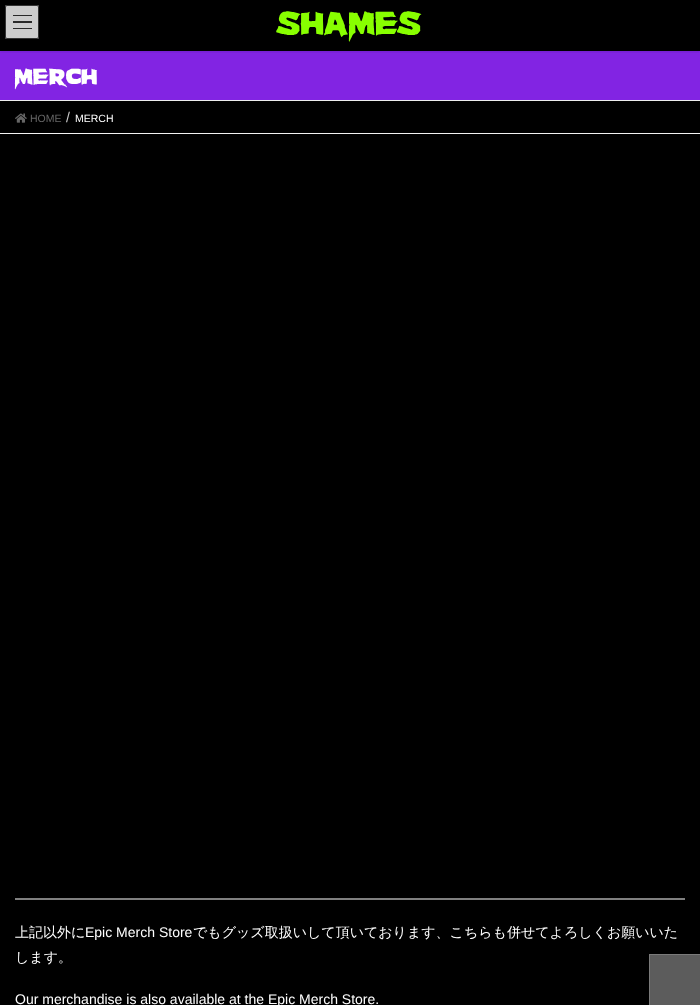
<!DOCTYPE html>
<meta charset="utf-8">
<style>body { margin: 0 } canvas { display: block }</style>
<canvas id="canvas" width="700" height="1005"></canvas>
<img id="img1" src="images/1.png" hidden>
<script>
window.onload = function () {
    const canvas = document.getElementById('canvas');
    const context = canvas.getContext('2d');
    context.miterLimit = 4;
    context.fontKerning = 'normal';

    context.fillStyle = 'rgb(0, 0, 0)';
    context.fillRect(0, 0, 700, 1005);
    context.fillStyle = 'rgb(130, 36, 227)';
    context.fillRect(0, 51, 700, 49);
    context.save();
    context.beginPath();
    context.rect(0, 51, 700, 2);
    context.clip();
    context.fillStyle = 'rgba(0, 0, 0, 0.1)';
    context.filter = 'blur(1.5px)';
    context.beginPath();
    context.rect(0, 1, 700, 51);
    context.fill();
    context.filter = 'none';
    context.restore();
    context.fillStyle = 'rgb(204, 204, 204)';
    context.beginPath();
    context.roundRect(5, 5, 34, 34, 2);
    context.fill();
    context.fillStyle = 'rgb(41, 41, 41)';
    context.fillRect(13, 15, 19, 1);
    context.fillRect(13, 21, 19, 2);
    context.fillRect(13, 28, 19, 1);
    context.beginPath();
    context.roundRect(5.5, 5.5, 33, 33, 1.5);
    context.strokeStyle = 'rgb(51, 51, 51)';
    context.stroke();
    context.fillStyle = 'rgb(238, 238, 238)';
    context.fillRect(0, 100, 700, 1);
    context.fillStyle = 'rgb(243, 243, 243)';
    context.fillRect(0, 133, 700, 1);
    context.drawImage(document.getElementById('img1'), 15, 113, 12, 10);
    context.fillStyle = 'rgb(128, 128, 128)';
    context.fillRect(15, 898, 670, 2);
    context.strokeStyle = 'rgb(122, 122, 122)';
    context.strokeRect(649.5, 954.5, 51, 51);
    context.fillStyle = 'rgb(92, 92, 92)';
    context.fillRect(650, 955, 50, 50);
    context.font = '32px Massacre';
    context.fillStyle = 'rgb(136, 255, 0)';
    context.fillText('SHAMES', 278, 34);
    context.font = '22px Massacre';
    context.fillStyle = 'rgb(255, 255, 255)';
    context.fillText('MERCH', 15, 84);
    context.font = '10.5px Liberation Sans';
    context.fillStyle = 'rgb(102, 102, 102)';
    context.fillText('HOME', 30, 122);
    context.font = '14px Liberation Sans';
    context.fillStyle = 'rgb(204, 204, 204)';
    context.fillText('/', 66, 122);
    context.font = '10.5px Liberation Sans';
    context.fillStyle = 'rgb(255, 255, 255)';
    context.fillText('MERCH', 75, 122);
    context.font = '500 14px WenQuanYi Zen Hei';
    context.fillText('上記以外に', 15, 937);
    context.font = '14px Liberation Sans';
    context.fillText('Epic Merch Store', 85, 937);
    context.font = '500 14px WenQuanYi Zen Hei';
    context.fillText('でもグッズ取扱いして頂いております、こちらも併せてよろしくお願いいた', 193, 937);
    context.fillText('します。', 15, 962);
    context.font = '14px Liberation Sans';
    context.fillText('Our merchandise is also available at the Epic Merch Store.', 15, 1004);
};
</script>
